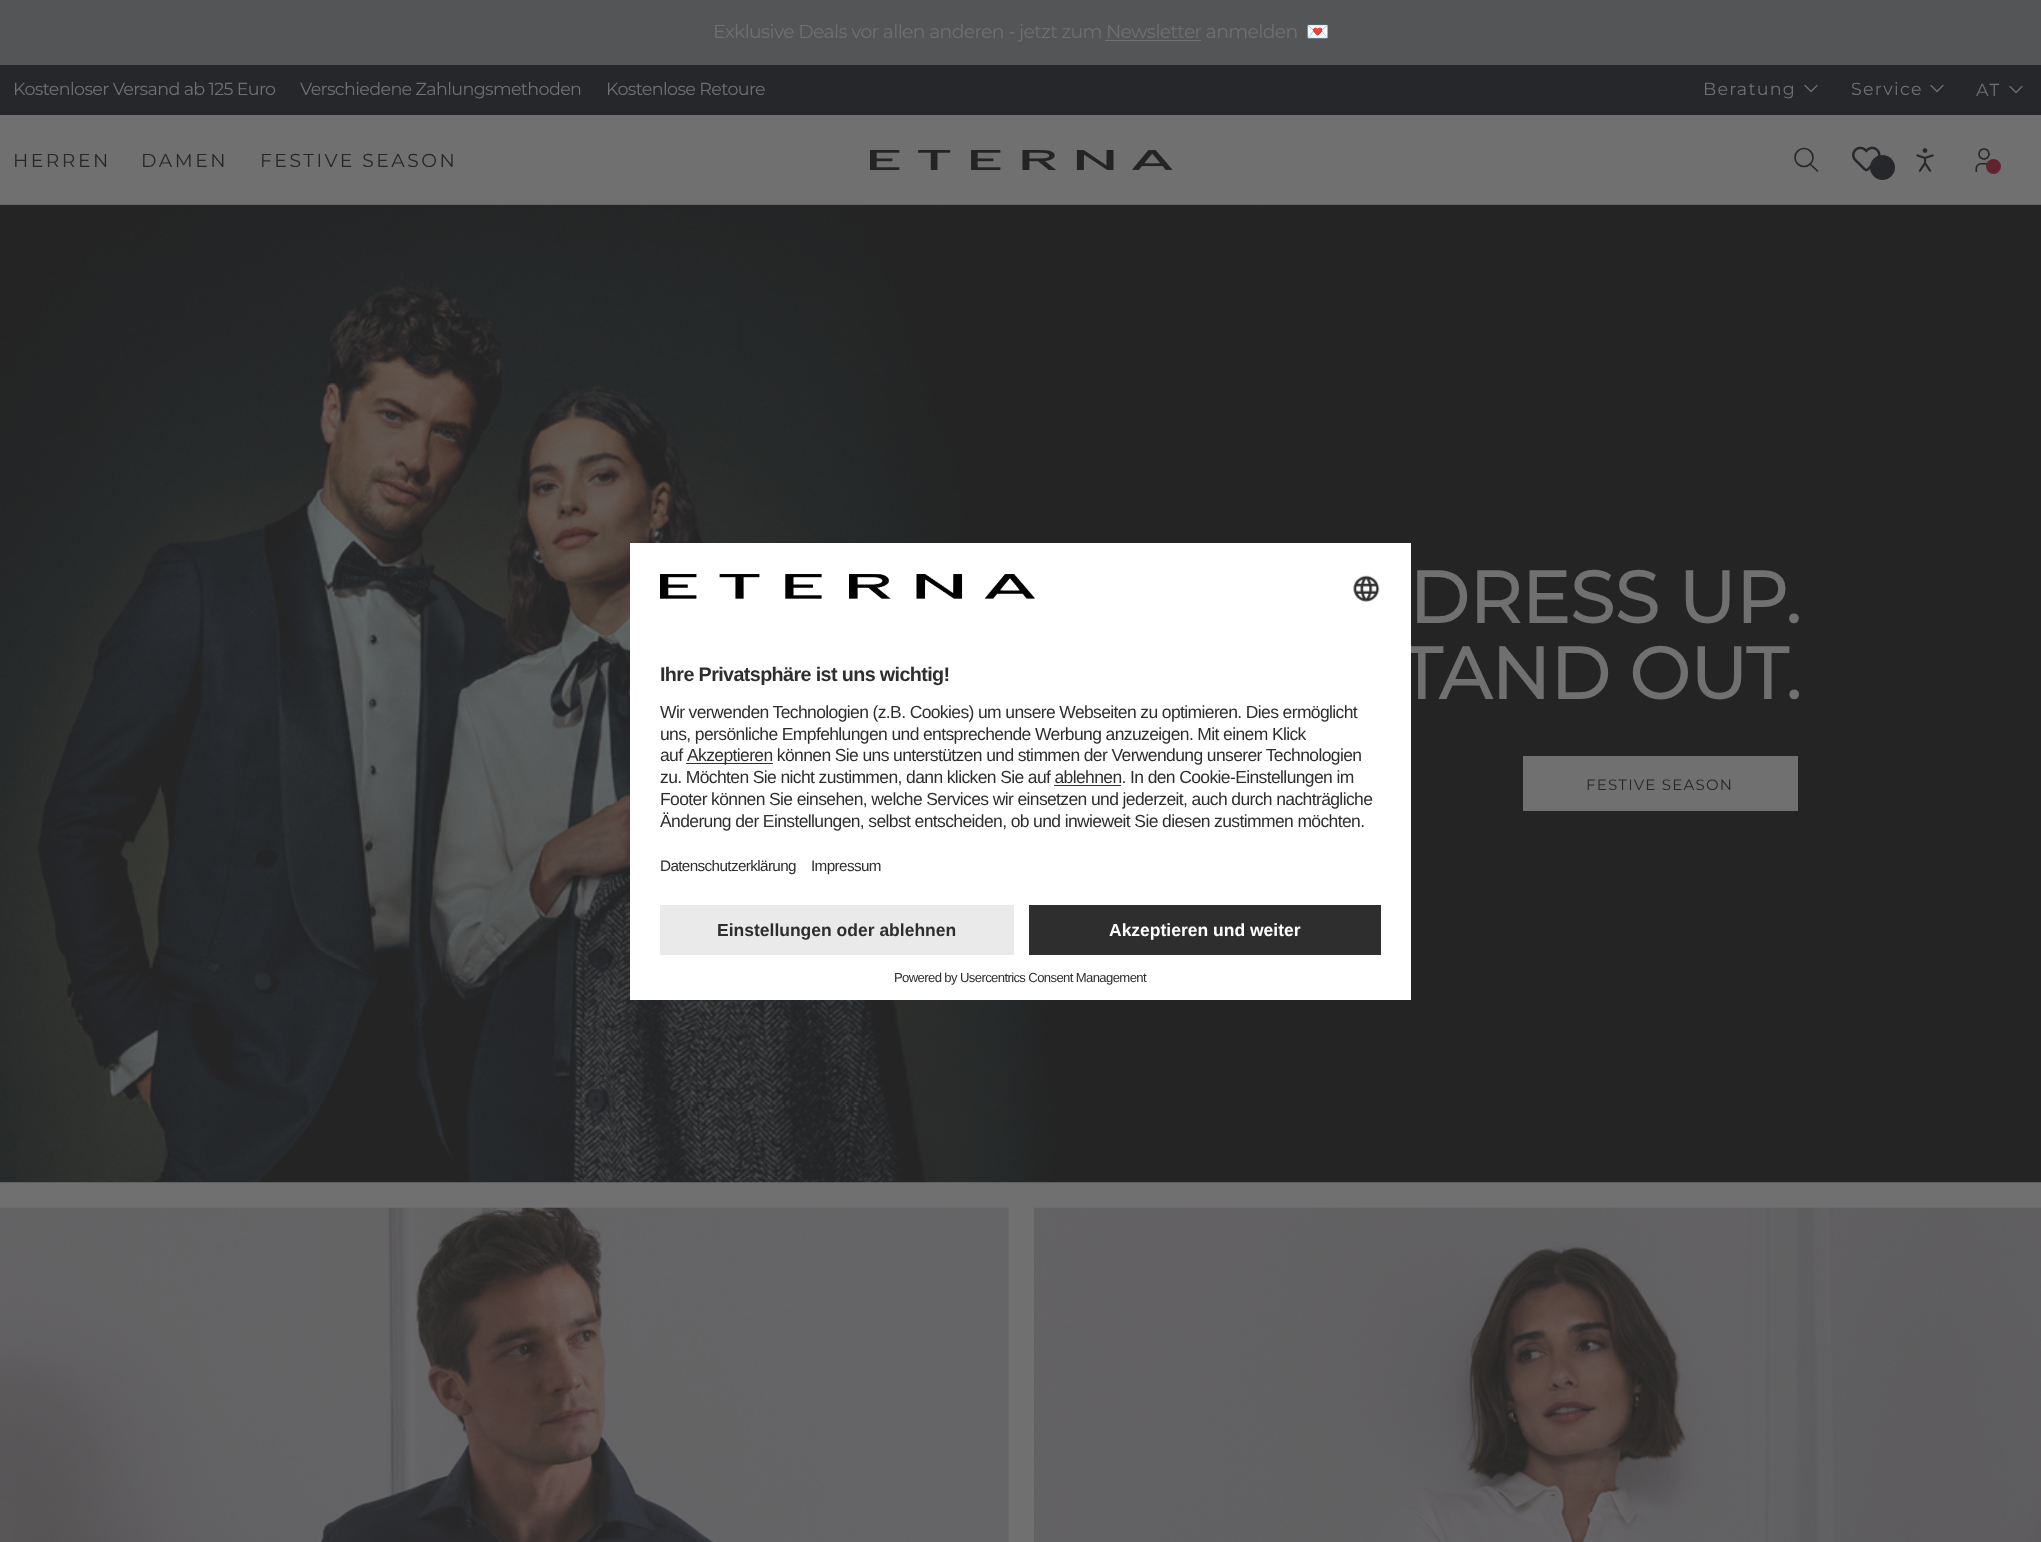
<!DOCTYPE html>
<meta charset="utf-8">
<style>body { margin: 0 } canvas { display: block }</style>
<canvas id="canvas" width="2041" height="1542"></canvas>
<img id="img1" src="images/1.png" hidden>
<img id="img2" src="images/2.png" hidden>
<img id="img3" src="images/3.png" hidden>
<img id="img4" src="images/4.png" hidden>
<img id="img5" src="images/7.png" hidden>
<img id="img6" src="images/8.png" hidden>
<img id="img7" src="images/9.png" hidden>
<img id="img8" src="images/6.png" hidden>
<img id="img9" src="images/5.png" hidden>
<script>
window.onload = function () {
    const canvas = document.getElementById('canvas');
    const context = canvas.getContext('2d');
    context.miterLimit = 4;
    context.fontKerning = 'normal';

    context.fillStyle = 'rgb(112, 112, 112)';
    context.fillRect(0, 0, 2041, 1542);
    context.fillStyle = 'rgb(84, 85, 86)';
    context.fillRect(0, 0, 2041, 65);
    context.fillStyle = 'rgb(112, 112, 112)';
    context.fillRect(1105, 40, 96, 1);
    context.fillStyle = 'rgb(38, 39, 43)';
    context.fillRect(0, 65, 2041, 50);
    context.beginPath();
    context.moveTo(1805, 85.5);
    context.lineTo(1811, 91.5);
    context.lineTo(1817, 85.5);
    context.strokeStyle = 'rgb(112, 112, 112)';
    context.lineWidth = 1.3;
    context.lineCap = 'round';
    context.lineJoin = 'round';
    context.stroke();
    context.beginPath();
    context.moveTo(1931, 85.5);
    context.lineTo(1937, 91.5);
    context.lineTo(1943, 85.5);
    context.stroke();
    context.beginPath();
    context.moveTo(2010, 86.5);
    context.lineTo(2016, 92.5);
    context.lineTo(2022, 86.5);
    context.stroke();
    context.fillStyle = 'rgb(99, 101, 102)';
    context.fillRect(0, 204, 2041, 1);
    context.drawImage(document.getElementById('img1'), 870, 150, 303, 20);
    context.beginPath();
    context.arc(1804, 157.5, 9, 0, 2 * Math.PI);
    context.strokeStyle = 'rgb(38, 39, 43)';
    context.lineWidth = 1.6;
    context.stroke();
    context.beginPath();
    context.moveTo(1817.5, 171);
    context.lineTo(1810, 164);
    context.stroke();
    context.drawImage(document.getElementById('img2'), 1852, 146, 29, 26);
    context.fillStyle = 'rgb(38, 39, 43)';
    context.beginPath();
    context.arc(1882.5, 167.5, 12.5, 0, 2 * Math.PI);
    context.fill();
    context.drawImage(document.getElementById('img3'), 1916, 148, 18, 24);
    context.drawImage(document.getElementById('img4'), 1975, 148, 15, 24);
    context.fillStyle = 'rgb(98, 36, 44)';
    context.beginPath();
    context.arc(1993.5, 166.5, 7.5, 0, 2 * Math.PI);
    context.fill();
    context.drawImage(document.getElementById('img5'), 0, 205, 2041, 978);
    context.fillStyle = 'rgb(112, 112, 112)';
    context.fillRect(1523, 756, 275, 55);
    context.drawImage(document.getElementById('img6'), 0, 1207, 1009, 335);
    context.drawImage(document.getElementById('img7'), 1034, 1207, 1007, 335);
    context.letterSpacing = '-0.62px';
    context.font = '18.75px Montserrat';
    context.fillText('Exklusive Deals vor allen anderen - jetzt zum Newsletter anmelden', 713, 38);
    context.font = '18.75px Noto Color Emoji';
    context.fillText('💌', 1306, 38);
    context.font = '17.5px Montserrat';
    context.fillText('Kostenloser Versand ab 125 Euro', 13, 95);
    context.fillText('Verschiedene Zahlungsmethoden', 300, 95);
    context.fillText('Kostenlose Retoure', 606, 95);
    context.letterSpacing = '1.25px';
    context.fillText('Beratung', 1703, 95);
    context.fillText('Service', 1851, 95);
    context.fillText('AT', 1976, 96);
    context.letterSpacing = '2.5px';
    context.font = '18.75px Montserrat';
    context.fillStyle = 'rgb(38, 39, 43)';
    context.fillText('HERREN', 13, 167);
    context.fillText('DAMEN', 141, 167);
    context.fillText('FESTIVE SEASON', 260, 167);
    context.letterSpacing = '0px';
    context.font = 'bold 72.5px Montserrat';
    context.fillStyle = 'rgb(112, 112, 112)';
    context.fillText('DRESS UP.', 1409, 623);
    context.fillText('TAND OUT.', 1400, 699);
    context.fillStyle = 'rgb(255, 255, 255)';
    context.fillRect(630, 543, 781, 457);
    context.drawImage(document.getElementById('img8'), 1353, 575, 27, 27);
    context.letterSpacing = '-0.62px';
    context.font = '15.25px Liberation Sans';
    context.fillStyle = 'rgb(46, 46, 46)';
    context.fillText('Impressum', 811, 871);
    context.fillText('Datenschutzerklärung', 660, 871);
    context.drawImage(document.getElementById('img9'), 660, 574, 375, 25);
    context.font = '17.5px Liberation Sans';
    context.fillText('Änderung der Einstellungen, selbst entscheiden, ob und inwieweit Sie diesen zustimmen möchten.', 660, 827);
    context.fillText('Footer können Sie einsehen, welche Services wir einsetzen und jederzeit, auch durch nachträgliche', 660, 805);
    context.fillText('zu. Möchten Sie nicht zustimmen, dann klicken Sie auf ablehnen. In den Cookie-Einstellungen im', 660, 783);
    context.fillStyle = 'rgb(48, 48, 48)';
    context.fillRect(1054, 785, 67, 1);
    context.fillRect(686, 763, 87, 1);
    context.fillStyle = 'rgb(46, 46, 46)';
    context.fillText('Akzeptieren können Sie uns unterstützen und stimmen der Verwendung unserer Technologien', 687, 761);
    context.fillText('auf', 660, 761);
    context.fillText('uns, persönliche Empfehlungen und entsprechende Werbung anzuzeigen. Mit einem Klick', 660, 740);
    context.fillText('Wir verwenden Technologien (z.B. Cookies) um unsere Webseiten zu optimieren. Dies ermöglicht', 660, 718);
    context.font = 'bold 19.75px Liberation Sans';
    context.fillText('Ihre Privatsphäre ist uns wichtig!', 660, 681);
    context.font = '13.1px Liberation Sans';
    context.fillText('Powered by Usercentrics Consent Management', 894, 982);
    context.fillRect(1029, 905, 352, 50);
    context.letterSpacing = '0px';
    context.font = 'bold 17.5px Liberation Sans';
    context.fillStyle = 'rgb(255, 255, 255)';
    context.fillText('Akzeptieren und weiter', 1109, 936);
    context.fillStyle = 'rgb(234, 234, 234)';
    context.fillRect(660, 905, 354, 50);
    context.fillStyle = 'rgb(46, 46, 46)';
    context.fillText('Einstellungen oder ablehnen', 717, 936);
    context.letterSpacing = '1.25px';
    context.font = '15px Montserrat';
    context.fillStyle = 'rgb(38, 39, 43)';
    context.fillText('FESTIVE SEASON', 1586, 790);
};
</script>
